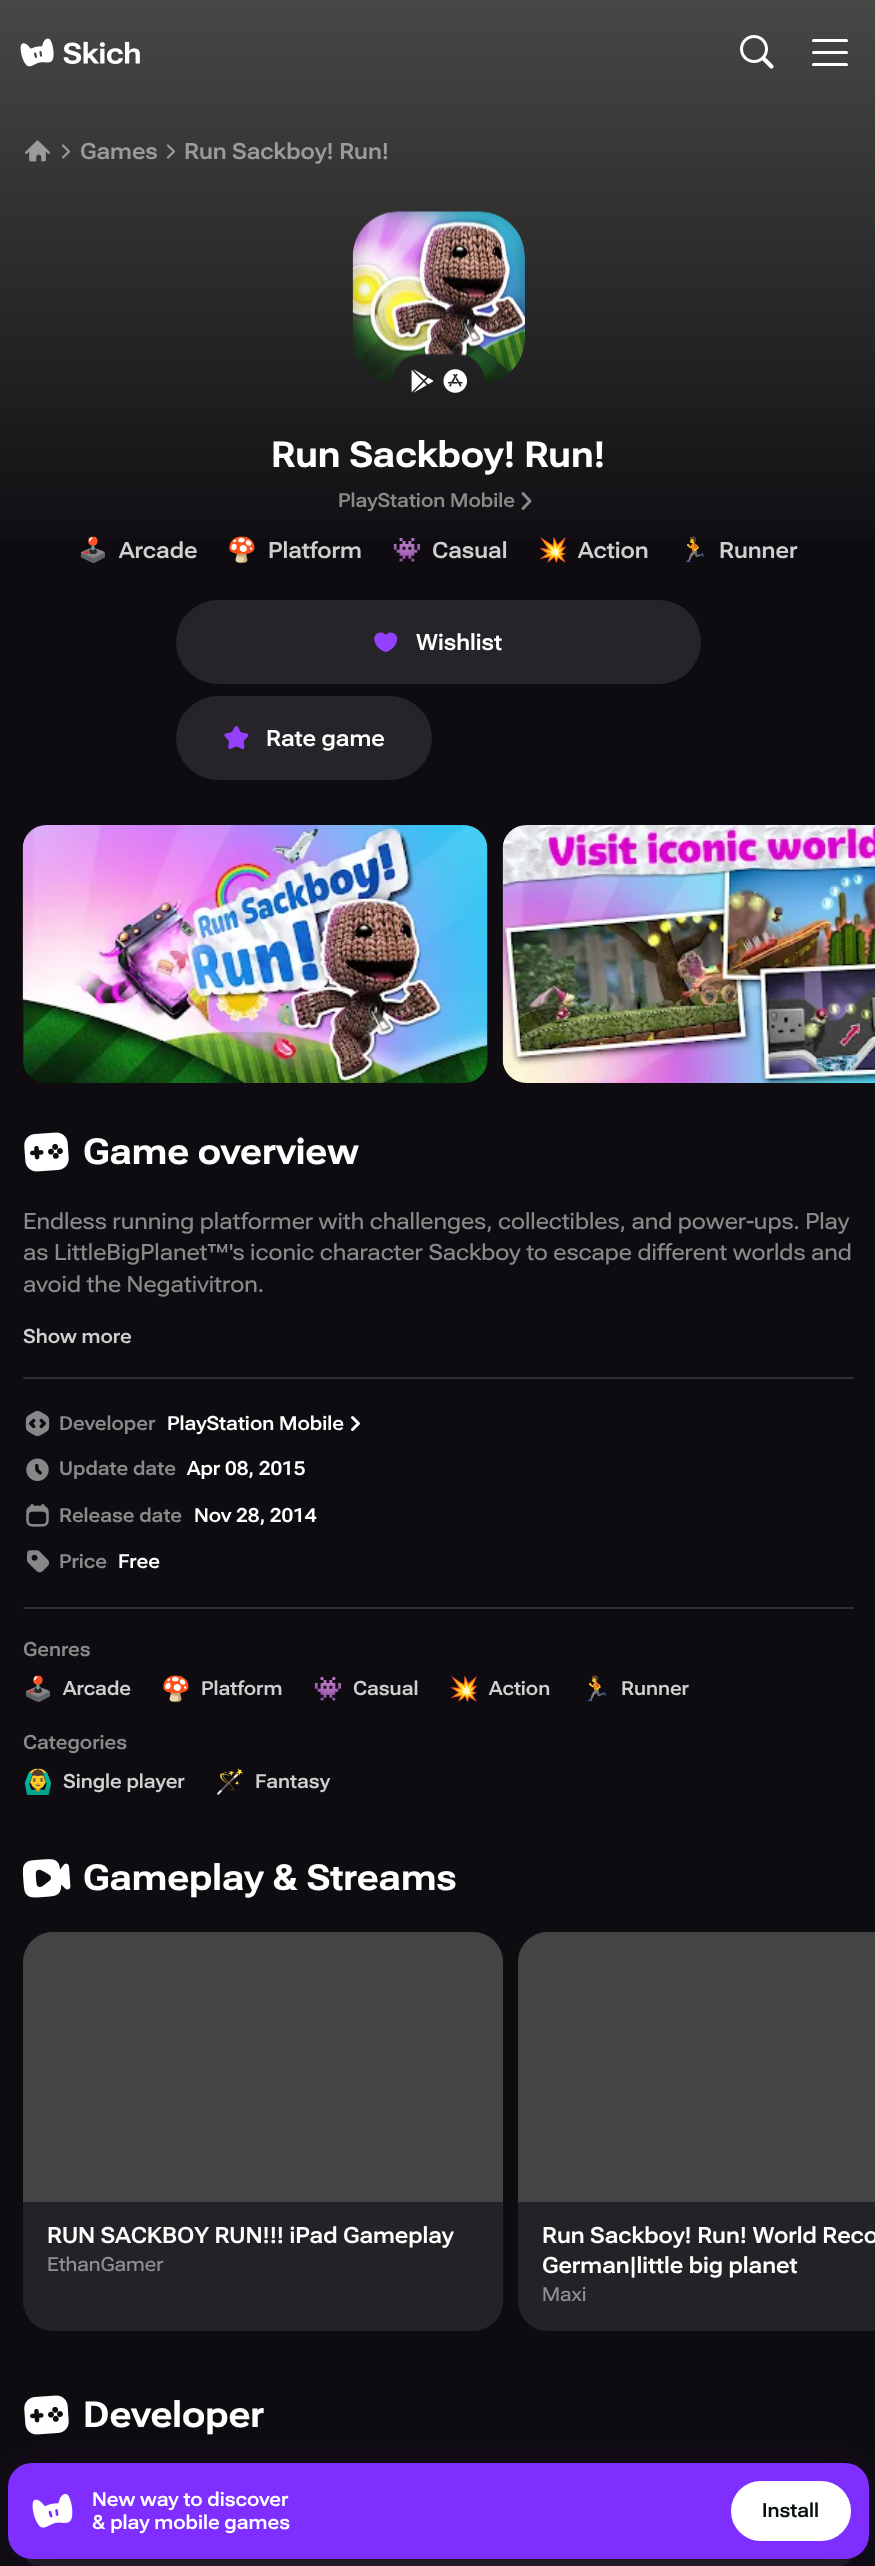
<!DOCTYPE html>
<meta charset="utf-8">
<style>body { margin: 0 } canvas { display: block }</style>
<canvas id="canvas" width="875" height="2566"></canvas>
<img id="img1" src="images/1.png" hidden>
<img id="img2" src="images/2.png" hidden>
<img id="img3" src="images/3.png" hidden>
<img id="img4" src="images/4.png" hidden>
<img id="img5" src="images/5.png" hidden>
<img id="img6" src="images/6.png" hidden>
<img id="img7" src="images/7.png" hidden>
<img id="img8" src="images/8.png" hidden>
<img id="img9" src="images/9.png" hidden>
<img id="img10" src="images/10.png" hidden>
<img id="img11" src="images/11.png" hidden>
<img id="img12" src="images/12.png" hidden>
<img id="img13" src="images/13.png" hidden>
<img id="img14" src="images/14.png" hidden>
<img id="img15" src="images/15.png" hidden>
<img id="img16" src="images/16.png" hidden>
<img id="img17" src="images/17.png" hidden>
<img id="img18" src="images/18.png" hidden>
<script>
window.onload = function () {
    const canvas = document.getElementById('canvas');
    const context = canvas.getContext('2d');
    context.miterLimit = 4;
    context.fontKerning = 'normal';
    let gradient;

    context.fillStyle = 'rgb(14, 12, 16)';
    context.fillRect(0, 0, 875, 2566);
    gradient = context.createLinearGradient(438, 0, 438, 563);
    gradient.addColorStop(0, 'rgb(72, 71, 70)');
    gradient.addColorStop(1, 'rgb(14, 12, 16)');
    context.fillStyle = gradient;
    context.fillRect(0, 0, 875, 539);
    context.drawImage(document.getElementById('img1'), 20, 38, 34, 29);
    context.drawImage(document.getElementById('img2'), 63, 41, 77, 23);
    context.drawImage(document.getElementById('img3'), 740, 35, 34, 34);
    context.fillStyle = 'rgb(255, 255, 255)';
    context.beginPath();
    context.roundRect(812, 39, 36, 3, 1.5);
    context.fill();
    context.beginPath();
    context.roundRect(812, 51, 36, 3, 1.5);
    context.fill();
    context.beginPath();
    context.roundRect(812, 63, 36, 3, 1.5);
    context.fill();
    context.drawImage(document.getElementById('img4'), 25, 140, 25, 22);
    context.beginPath();
    context.moveTo(63, 145.5);
    context.lineTo(69, 151.5);
    context.lineTo(63, 157.5);
    context.strokeStyle = 'rgb(156, 155, 155)';
    context.lineWidth = 2.2;
    context.lineCap = 'round';
    context.lineJoin = 'round';
    context.stroke();
    context.beginPath();
    context.moveTo(168, 145.5);
    context.lineTo(174, 151.5);
    context.lineTo(168, 157.5);
    context.stroke();
    context.drawImage(document.getElementById('img5'), 352, 211, 173, 173);
    context.drawImage(document.getElementById('img6'), 411, 369, 23, 24);
    context.drawImage(document.getElementById('img7'), 443, 369, 24, 24);
    context.beginPath();
    context.moveTo(523, 493.5);
    context.lineTo(530, 501);
    context.lineTo(523, 508.5);
    context.strokeStyle = 'rgb(138, 137, 138)';
    context.lineWidth = 3;
    context.stroke();
    context.fillStyle = 'rgb(38, 36, 40)';
    context.beginPath();
    context.roundRect(176, 600, 525, 84, 42);
    context.fill();
    context.drawImage(document.getElementById('img8'), 374, 632, 24, 20);
    context.beginPath();
    context.roundRect(176, 696, 256, 84, 42);
    context.fill();
    context.drawImage(document.getElementById('img9'), 224, 726, 25, 23);
    context.fillStyle = 'rgb(34, 34, 34)';
    context.beginPath();
    context.roundRect(23, 825, 465, 258, 24);
    context.fill();
    context.drawImage(document.getElementById('img10'), 22, 825, 466, 258);
    context.drawImage(document.getElementById('img11'), 502, 825, 373, 258);
    context.drawImage(document.getElementById('img12'), 24, 1132, 45, 40);
    context.fillStyle = 'rgb(49, 46, 52)';
    context.beginPath();
    context.roundRect(23, 1377, 831, 2, 1);
    context.fill();
    context.drawImage(document.getElementById('img13'), 25, 1410, 25, 27);
    context.beginPath();
    context.moveTo(352.5, 1417.5);
    context.lineTo(358.5, 1423.5);
    context.lineTo(352.5, 1429.5);
    context.strokeStyle = 'rgb(255, 255, 255)';
    context.stroke();
    context.drawImage(document.getElementById('img14'), 26, 1458, 23, 23);
    context.drawImage(document.getElementById('img15'), 26, 1504, 23, 23);
    context.drawImage(document.getElementById('img16'), 27, 1550, 23, 23);
    context.beginPath();
    context.roundRect(23, 1607, 831, 2, 1);
    context.fill();
    context.drawImage(document.getElementById('img17'), 23, 1859, 48, 39);
    context.fillStyle = 'rgb(36, 34, 38)';
    context.beginPath();
    context.roundRect(23, 1932, 480, 399, 30);
    context.fill();
    context.fillStyle = 'rgb(68, 68, 68)';
    context.beginPath();
    context.roundRect(23, 1932, 480, 270, [30, 30, 0, 0]);
    context.fill();
    context.fillStyle = 'rgb(36, 34, 38)';
    context.beginPath();
    context.moveTo(548, 1932);
    context.lineTo(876, 1932);
    context.lineTo(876, 2331);
    context.lineTo(548, 2331);
    context.bezierCurveTo(531.5, 2331, 518, 2317.5, 518, 2301);
    context.lineTo(518, 1962);
    context.bezierCurveTo(518, 1945.5, 531.5, 1932, 548, 1932);
    context.closePath();
    context.fill();
    context.fillStyle = 'rgb(68, 68, 68)';
    context.beginPath();
    context.moveTo(548, 1932);
    context.lineTo(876, 1932);
    context.lineTo(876, 2202);
    context.lineTo(518, 2202);
    context.lineTo(518, 1962);
    context.bezierCurveTo(518, 1945.5, 531.5, 1932, 548, 1932);
    context.closePath();
    context.fill();
    context.drawImage(document.getElementById('img12'), 24, 2395, 45, 40);
    context.fillStyle = 'rgb(31, 29, 33)';
    context.beginPath();
    context.roundRect(23, 2469, 831, 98, 18);
    context.fill();
    context.fillStyle = 'rgba(37, 13, 68, 0.4)';
    context.filter = 'blur(15px)';
    context.beginPath();
    context.roundRect(8, 2463, 861, 96, 24);
    context.fill();
    context.filter = 'none';
    context.fillStyle = 'rgb(126, 47, 255)';
    context.beginPath();
    context.roundRect(8, 2463, 861, 96, 24);
    context.fill();
    context.drawImage(document.getElementById('img18'), 32, 2494, 41, 34);
    context.fillStyle = 'rgb(255, 255, 255)';
    context.beginPath();
    context.roundRect(732.5, 2482.5, 117, 57, 28.5);
    context.fill();
    context.lineJoin = 'miter';
    context.stroke();
    context.font = '500 22.5px Roboto Flex';
    context.fillStyle = 'rgb(156, 155, 155)';
    context.fillText('Games', 80, 159);
    context.fillText('Run Sackboy! Run!', 184, 159);
    context.font = '600 36px Roboto Flex';
    context.fillStyle = 'rgb(255, 255, 255)';
    context.fillText('Run Sackboy! Run!', 271, 467);
    context.font = '500 19.5px Roboto Flex';
    context.fillStyle = 'rgb(138, 137, 138)';
    context.fillText('PlayStation Mobile', 338, 507);
    context.font = 'bold 24px Noto Color Emoji';
    context.fillStyle = 'rgb(255, 255, 255)';
    context.fillText('🕹️', 78, 558);
    context.font = '500 22.5px Roboto Flex';
    context.fillStyle = 'rgb(207, 207, 207)';
    context.fillText('Arcade', 119, 558);
    context.font = 'bold 24px Noto Color Emoji';
    context.fillStyle = 'rgb(255, 255, 255)';
    context.fillText('🍄', 227, 558);
    context.font = '500 22.5px Roboto Flex';
    context.fillStyle = 'rgb(207, 207, 207)';
    context.fillText('Platform', 268, 558);
    context.font = 'bold 24px Noto Color Emoji';
    context.fillStyle = 'rgb(255, 255, 255)';
    context.fillText('👾', 392, 558);
    context.font = '500 22.5px Roboto Flex';
    context.fillStyle = 'rgb(207, 207, 207)';
    context.fillText('Casual', 432, 558);
    context.font = 'bold 24px Noto Color Emoji';
    context.fillStyle = 'rgb(255, 255, 255)';
    context.fillText('💥', 538, 558);
    context.font = '500 22.5px Roboto Flex';
    context.fillStyle = 'rgb(207, 207, 207)';
    context.fillText('Action', 578, 558);
    context.font = 'bold 24px Noto Color Emoji';
    context.fillStyle = 'rgb(255, 255, 255)';
    context.fillText('🏃', 679, 558);
    context.font = '500 22.5px Roboto Flex';
    context.fillStyle = 'rgb(207, 207, 207)';
    context.fillText('Runner', 719, 558);
    context.fillStyle = 'rgb(255, 255, 255)';
    context.fillText('Wishlist', 416, 650);
    context.fillText('Rate game', 266, 746);
    context.font = '600 36px Roboto Flex';
    context.fillText('Game overview', 83, 1164);
    context.font = '300 22.5px Roboto Flex';
    context.fillStyle = 'rgb(138, 137, 138)';
    context.fillText('Endless running platformer with challenges, collectibles, and power-ups. Play', 23, 1229);
    context.fillText('as LittleBigPlanet™\'s iconic character Sackboy to escape different worlds and', 23, 1260);
    context.fillText('avoid the Negativitron.', 23, 1292);
    context.font = '500 19.5px Roboto Flex';
    context.fillStyle = 'rgb(207, 207, 207)';
    context.fillText('Show more', 23, 1343);
    context.fillStyle = 'rgb(138, 137, 138)';
    context.fillText('Developer', 59, 1430);
    context.fillStyle = 'rgb(255, 255, 255)';
    context.fillText('PlayStation Mobile', 167, 1430);
    context.fillStyle = 'rgb(138, 137, 138)';
    context.fillText('Update date', 59, 1475);
    context.fillStyle = 'rgb(255, 255, 255)';
    context.fillText('Apr 08, 2015', 187, 1475);
    context.fillStyle = 'rgb(138, 137, 138)';
    context.fillText('Release date', 59, 1522);
    context.fillStyle = 'rgb(255, 255, 255)';
    context.fillText('Nov 28, 2014', 194, 1522);
    context.fillStyle = 'rgb(138, 137, 138)';
    context.fillText('Price', 59, 1568);
    context.fillStyle = 'rgb(255, 255, 255)';
    context.fillText('Free', 118, 1568);
    context.fillStyle = 'rgb(138, 137, 138)';
    context.fillText('Genres', 23, 1656);
    context.font = 'bold 24px Noto Color Emoji';
    context.fillStyle = 'rgb(255, 255, 255)';
    context.fillText('🕹️', 23, 1697);
    context.font = '500 19.5px Roboto Flex';
    context.fillStyle = 'rgb(207, 207, 207)';
    context.fillText('Arcade', 63, 1695);
    context.font = 'bold 24px Noto Color Emoji';
    context.fillStyle = 'rgb(255, 255, 255)';
    context.fillText('🍄', 161, 1697);
    context.font = '500 19.5px Roboto Flex';
    context.fillStyle = 'rgb(207, 207, 207)';
    context.fillText('Platform', 201, 1695);
    context.font = 'bold 24px Noto Color Emoji';
    context.fillStyle = 'rgb(255, 255, 255)';
    context.fillText('👾', 313, 1697);
    context.font = '500 19.5px Roboto Flex';
    context.fillStyle = 'rgb(207, 207, 207)';
    context.fillText('Casual', 353, 1695);
    context.font = 'bold 24px Noto Color Emoji';
    context.fillStyle = 'rgb(255, 255, 255)';
    context.fillText('💥', 449, 1697);
    context.font = '500 19.5px Roboto Flex';
    context.fillStyle = 'rgb(207, 207, 207)';
    context.fillText('Action', 489, 1695);
    context.font = 'bold 24px Noto Color Emoji';
    context.fillStyle = 'rgb(255, 255, 255)';
    context.fillText('🏃', 581, 1697);
    context.font = '500 19.5px Roboto Flex';
    context.fillStyle = 'rgb(207, 207, 207)';
    context.fillText('Runner', 621, 1695);
    context.fillStyle = 'rgb(138, 137, 138)';
    context.fillText('Categories', 23, 1749);
    context.font = 'bold 24px Noto Color Emoji';
    context.fillStyle = 'rgb(255, 255, 255)';
    context.fillText('🙆‍♂️', 23, 1790);
    context.font = '500 19.5px Roboto Flex';
    context.fillStyle = 'rgb(207, 207, 207)';
    context.fillText('Single player', 63, 1788);
    context.font = 'bold 24px Noto Color Emoji';
    context.fillStyle = 'rgb(255, 255, 255)';
    context.fillText('🪄', 215, 1790);
    context.font = '500 19.5px Roboto Flex';
    context.fillStyle = 'rgb(207, 207, 207)';
    context.fillText('Fantasy', 255, 1788);
    context.font = '600 36px Roboto Flex';
    context.fillStyle = 'rgb(255, 255, 255)';
    context.fillText('Gameplay & Streams', 83, 1890);
    context.font = '500 22.5px Roboto Flex';
    context.fillText('RUN SACKBOY RUN!!! iPad Gameplay', 47, 2243);
    context.font = '300 19.5px Roboto Flex';
    context.fillStyle = 'rgb(146, 145, 147)';
    context.fillText('EthanGamer', 47, 2271);
    context.font = '500 22.5px Roboto Flex';
    context.fillStyle = 'rgb(255, 255, 255)';
    context.fillText('Run Sackboy! Run! World Reco', 542, 2243);
    context.fillText('German|little big planet', 542, 2273);
    context.font = '300 19.5px Roboto Flex';
    context.fillStyle = 'rgb(146, 145, 147)';
    context.fillText('Maxi', 542, 2301);
    context.font = '600 36px Roboto Flex';
    context.fillStyle = 'rgb(255, 255, 255)';
    context.fillText('Developer', 83, 2427);
    context.font = '500 19.5px Roboto Flex';
    context.fillText('New way to discover', 92, 2506);
    context.fillText('& play mobile games', 92, 2529);
    context.fillStyle = 'rgb(4, 17, 7)';
    context.fillText('Install', 762, 2517);
};
</script>
